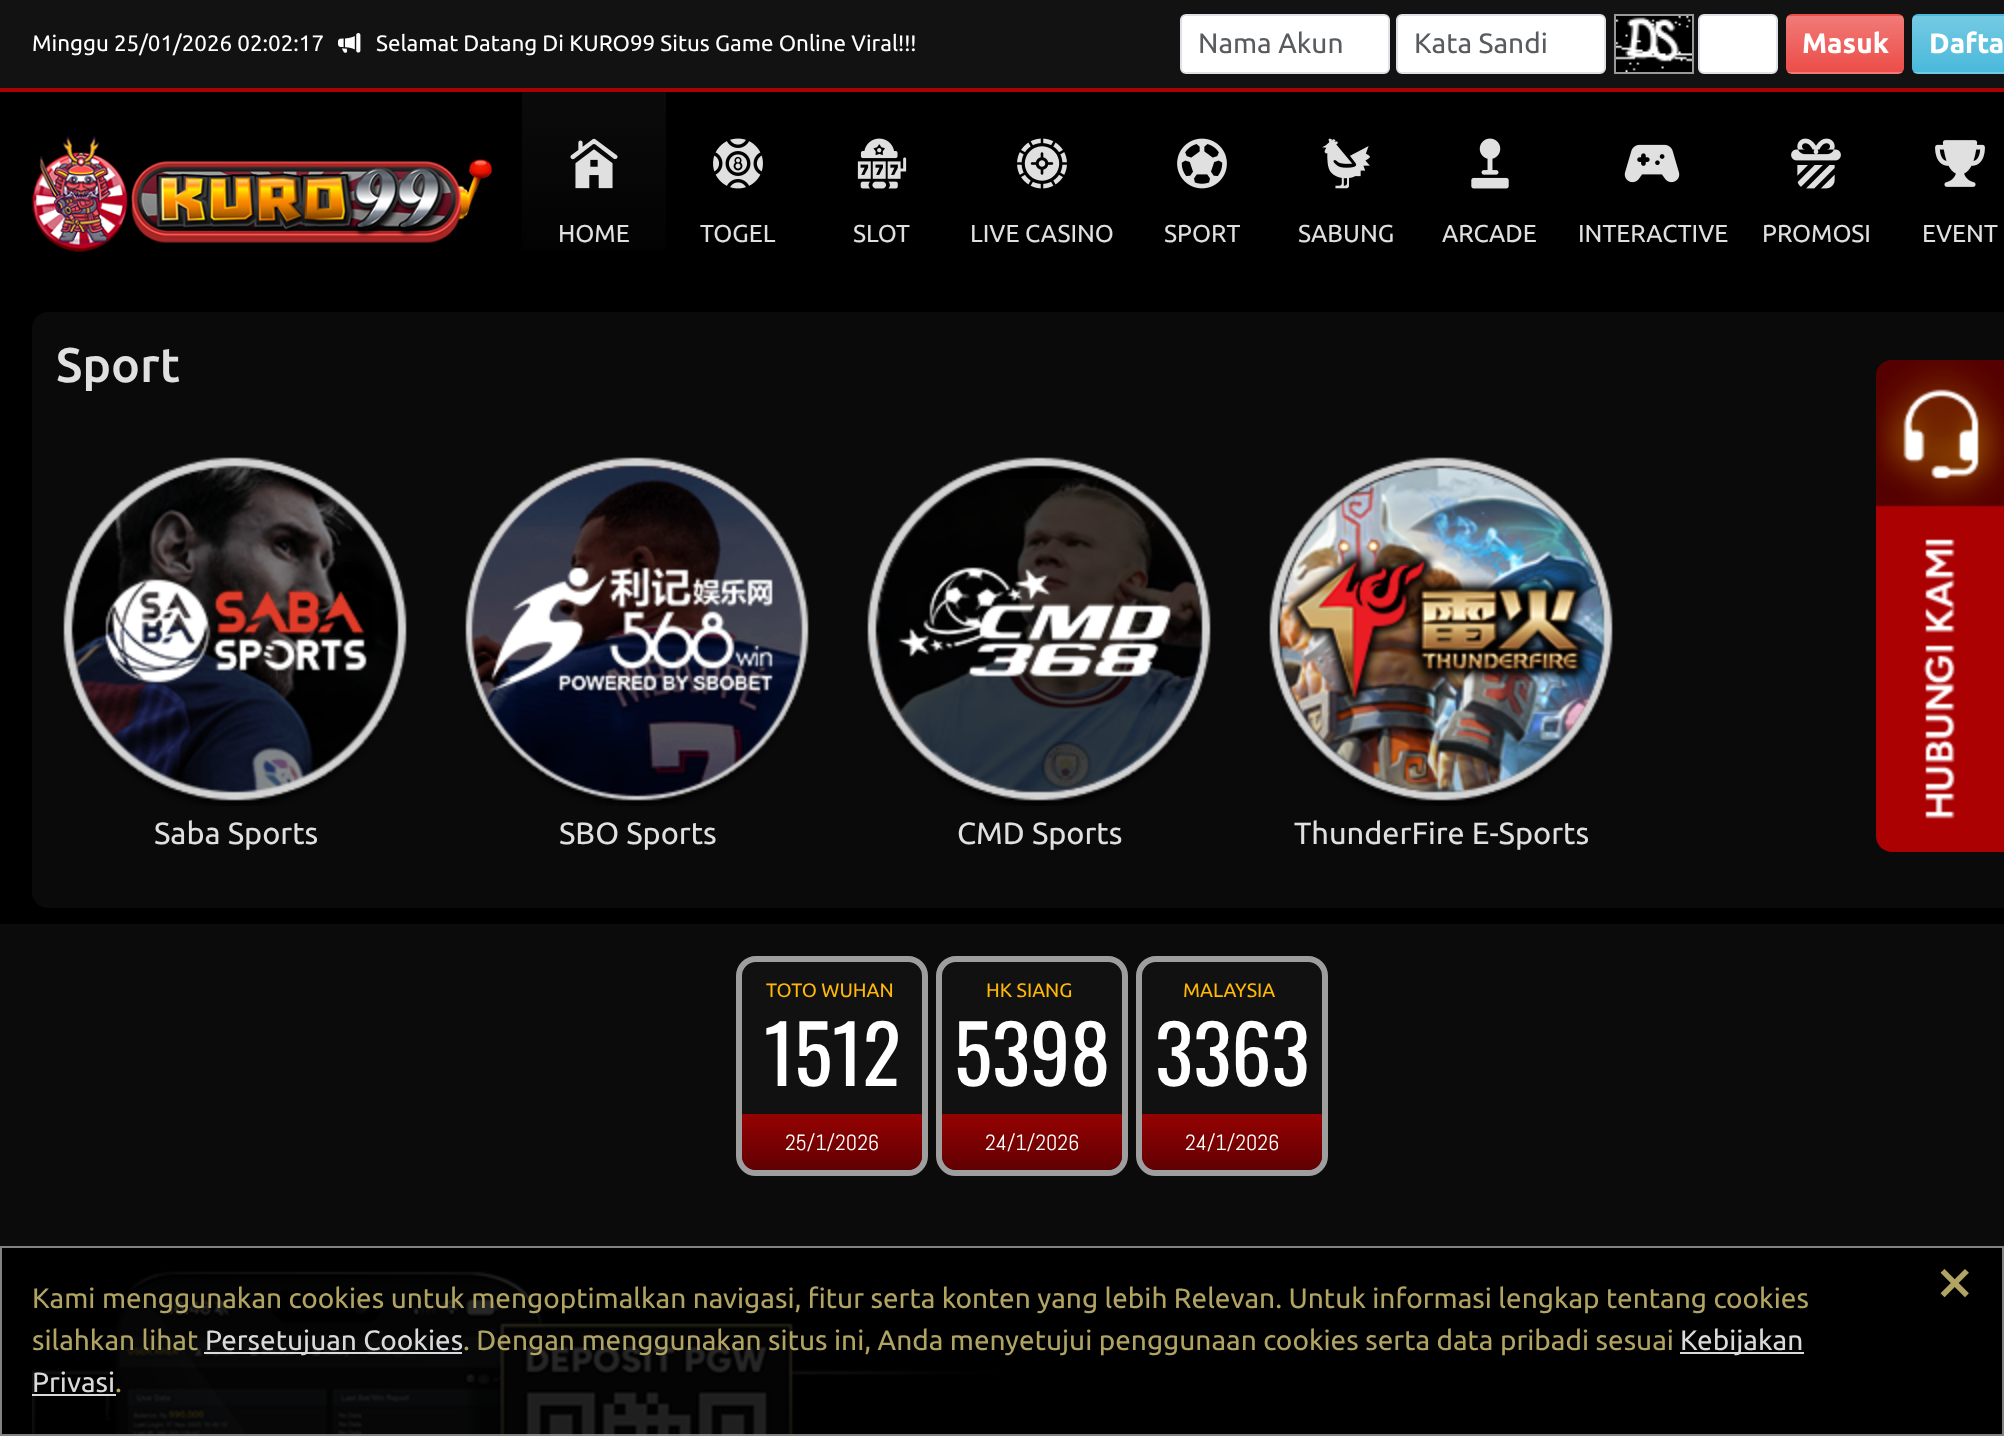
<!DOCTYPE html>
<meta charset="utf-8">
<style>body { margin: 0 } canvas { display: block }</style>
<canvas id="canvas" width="2004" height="1436"></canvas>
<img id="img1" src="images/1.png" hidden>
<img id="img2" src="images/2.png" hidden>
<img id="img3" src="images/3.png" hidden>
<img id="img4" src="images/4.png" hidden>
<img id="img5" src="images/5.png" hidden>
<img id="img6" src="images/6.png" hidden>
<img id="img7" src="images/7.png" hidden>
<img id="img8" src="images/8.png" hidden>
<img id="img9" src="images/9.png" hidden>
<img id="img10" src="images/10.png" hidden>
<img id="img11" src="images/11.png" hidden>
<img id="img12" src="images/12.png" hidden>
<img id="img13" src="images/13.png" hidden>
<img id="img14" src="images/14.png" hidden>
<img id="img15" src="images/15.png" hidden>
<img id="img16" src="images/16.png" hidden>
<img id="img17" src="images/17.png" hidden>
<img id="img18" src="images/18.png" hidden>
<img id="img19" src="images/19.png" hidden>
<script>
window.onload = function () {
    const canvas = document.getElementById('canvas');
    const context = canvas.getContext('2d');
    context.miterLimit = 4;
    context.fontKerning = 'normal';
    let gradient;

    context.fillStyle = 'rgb(0, 0, 0)';
    context.fillRect(0, 0, 2004, 1436);
    context.fillStyle = 'rgb(18, 18, 18)';
    context.fillRect(0, 0, 2004, 88);
    context.fillStyle = 'rgb(171, 1, 2)';
    context.fillRect(0, 88, 2004, 4);
    context.drawImage(document.getElementById('img1'), 338, 33, 23, 20);
    context.fillStyle = 'rgb(255, 255, 255)';
    context.beginPath();
    context.roundRect(1181, 15, 208, 58, 5);
    context.fill();
    context.strokeStyle = 'rgb(222, 226, 230)';
    context.lineWidth = 2;
    context.stroke();
    context.beginPath();
    context.roundRect(1397, 15, 208, 58, 5);
    context.fill();
    context.stroke();
    context.strokeStyle = 'rgb(153, 153, 153)';
    context.strokeRect(1615, 15, 78, 58);
    context.drawImage(document.getElementById('img2'), 1616, 16, 76, 56);
    context.beginPath();
    context.roundRect(1699, 15, 78, 58, 5);
    context.fill();
    context.strokeStyle = 'rgb(222, 226, 230)';
    context.stroke();
    context.save();
    context.beginPath();
    context.roundRect(1786, 14, 118, 60, 6);
    context.clip();
    gradient = context.createLinearGradient(1845, -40, 1845, 16);
    gradient.addColorStop(0, 'rgb(241, 122, 119)');
    gradient.addColorStop(0.6, 'rgb(238, 95, 91)');
    gradient.addColorStop(1, 'rgb(236, 77, 73)');
    context.fillStyle = gradient;
    context.fillRect(1786, 14, 118, 2);
    gradient = context.createLinearGradient(1845, 16, 1845, 72);
    gradient.addColorStop(0, 'rgb(241, 122, 119)');
    gradient.addColorStop(0.6, 'rgb(238, 95, 91)');
    gradient.addColorStop(1, 'rgb(236, 77, 73)');
    context.fillStyle = gradient;
    context.fillRect(1786, 16, 118, 56);
    gradient = context.createLinearGradient(1845, 72, 1845, 128);
    gradient.addColorStop(0, 'rgb(241, 122, 119)');
    gradient.addColorStop(0.6, 'rgb(238, 95, 91)');
    gradient.addColorStop(1, 'rgb(236, 77, 73)');
    context.fillStyle = gradient;
    context.fillRect(1786, 72, 118, 2);
    context.restore();
    context.save();
    context.beginPath();
    context.roundRect(1912, 14, 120, 60, 6);
    context.clip();
    gradient = context.createLinearGradient(1972, -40, 1972, 16);
    gradient.addColorStop(0, 'rgb(116, 202, 227)');
    gradient.addColorStop(0.6, 'rgb(91, 192, 222)');
    gradient.addColorStop(1, 'rgb(74, 185, 219)');
    context.fillStyle = gradient;
    context.fillRect(1912, 14, 92, 2);
    gradient = context.createLinearGradient(1972, 16, 1972, 72);
    gradient.addColorStop(0, 'rgb(116, 202, 227)');
    gradient.addColorStop(0.6, 'rgb(91, 192, 222)');
    gradient.addColorStop(1, 'rgb(74, 185, 219)');
    context.fillStyle = gradient;
    context.fillRect(1912, 16, 92, 56);
    gradient = context.createLinearGradient(1972, 72, 1972, 128);
    gradient.addColorStop(0, 'rgb(116, 202, 227)');
    gradient.addColorStop(0.6, 'rgb(91, 192, 222)');
    gradient.addColorStop(1, 'rgb(74, 185, 219)');
    context.fillStyle = gradient;
    context.fillRect(1912, 72, 92, 2);
    context.restore();
    context.drawImage(document.getElementById('img3'), 32, 136, 460, 116);
    gradient = context.createLinearGradient(594, 92, 594, 296);
    gradient.addColorStop(0, 'rgb(11, 11, 11)');
    gradient.addColorStop(1, 'rgb(0, 0, 0)');
    context.fillStyle = gradient;
    context.fillRect(522, 92, 144, 158);
    context.drawImage(document.getElementById('img4'), 570, 138, 48, 51);
    context.drawImage(document.getElementById('img5'), 713, 138, 50, 51);
    context.drawImage(document.getElementById('img6'), 857, 138, 50, 51);
    context.drawImage(document.getElementById('img7'), 1017, 138, 50, 51);
    context.drawImage(document.getElementById('img8'), 1177, 138, 50, 51);
    context.drawImage(document.getElementById('img9'), 1322, 138, 48, 51);
    context.drawImage(document.getElementById('img10'), 1471, 138, 38, 51);
    context.drawImage(document.getElementById('img11'), 1624, 144, 56, 39);
    context.drawImage(document.getElementById('img12'), 1791, 138, 50, 51);
    context.drawImage(document.getElementById('img13'), 1935, 140, 50, 47);
    context.fillStyle = 'rgb(10, 10, 10)';
    context.beginPath();
    context.roundRect(32, 312, 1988, 596, 16);
    context.fill();
    context.drawImage(document.getElementById('img14'), 63, 457, 344, 349);
    context.drawImage(document.getElementById('img15'), 465, 457, 344, 349);
    context.drawImage(document.getElementById('img16'), 867, 457, 344, 349);
    context.drawImage(document.getElementById('img17'), 1269, 457, 344, 349);
    context.fillStyle = 'rgb(171, 1, 2)';
    context.beginPath();
    context.roundRect(1876, 360, 128, 492, [16, 0, 0, 16]);
    context.fill();
    context.drawImage(document.getElementById('img18'), 1876, 360, 128, 459);
    context.fillStyle = 'rgb(11, 11, 11)';
    context.fillRect(0, 924, 2004, 322);
    context.drawImage(document.getElementById('img19'), 32, 1271, 971, 165);
    context.fillStyle = 'rgb(17, 17, 17)';
    context.beginPath();
    context.roundRect(739, 959, 186, 214, 17);
    context.fill();
    context.strokeStyle = 'rgb(158, 158, 158)';
    context.lineWidth = 6;
    context.stroke();
    gradient = context.createLinearGradient(832, 1170, 832, 1114);
    gradient.addColorStop(0, 'rgb(96, 0, 2)');
    gradient.addColorStop(1, 'rgb(150, 2, 2)');
    context.fillStyle = gradient;
    context.beginPath();
    context.roundRect(742, 1114, 180, 56, [0, 0, 14, 14]);
    context.fill();
    context.fillStyle = 'rgb(17, 17, 17)';
    context.beginPath();
    context.roundRect(939, 959, 186, 214, 17);
    context.fill();
    context.stroke();
    gradient = context.createLinearGradient(1032, 1170, 1032, 1114);
    gradient.addColorStop(0, 'rgb(96, 0, 2)');
    gradient.addColorStop(1, 'rgb(150, 2, 2)');
    context.fillStyle = gradient;
    context.beginPath();
    context.roundRect(942, 1114, 180, 56, [0, 0, 14, 14]);
    context.fill();
    context.fillStyle = 'rgb(17, 17, 17)';
    context.beginPath();
    context.roundRect(1139, 959, 186, 214, 17);
    context.fill();
    context.stroke();
    gradient = context.createLinearGradient(1232, 1170, 1232, 1114);
    gradient.addColorStop(0, 'rgb(96, 0, 2)');
    gradient.addColorStop(1, 'rgb(150, 2, 2)');
    context.fillStyle = gradient;
    context.beginPath();
    context.roundRect(1142, 1114, 180, 56, [0, 0, 14, 14]);
    context.fill();
    context.strokeStyle = 'rgba(153, 153, 153, 0.85)';
    context.lineWidth = 2;
    context.strokeRect(1, 1247, 2002, 188);
    context.fillStyle = 'rgba(255, 255, 255, 0.85)';
    context.fillRect(204, 1352, 258, 2);
    context.fillStyle = 'rgb(218, 218, 218)';
    context.fillRect(1680, 1352, 124, 2);
    context.fillStyle = 'rgba(255, 255, 255, 0.85)';
    context.fillRect(32, 1394, 84, 2);
    context.font = '22.4px Ubuntu';
    context.fillStyle = 'rgb(255, 255, 255)';
    context.fillText('Minggu 25/01/2026 02:02:17', 32, 51);
    context.fillText('Selamat Datang Di KURO99 Situs Game Online Viral!!!', 376, 51);
    context.font = '28px Ubuntu';
    context.fillStyle = 'rgb(89, 92, 95)';
    context.fillText('Nama Akun', 1198, 53);
    context.fillText('Kata Sandi', 1414, 53);
    context.font = 'bold 28px Ubuntu';
    context.fillStyle = 'rgb(255, 255, 255)';
    context.fillText('Masuk', 1802, 53);
    context.fillText('Dafta', 1929, 53);
    context.font = '24.5px Ubuntu';
    context.fillStyle = 'rgb(224, 224, 224)';
    context.fillText('HOME', 558, 242);
    context.fillText('TOGEL', 700, 242);
    context.fillText('SLOT', 853, 242);
    context.fillText('LIVE CASINO', 970, 242);
    context.fillText('SPORT', 1164, 242);
    context.fillText('SABUNG', 1298, 242);
    context.fillText('ARCADE', 1442, 242);
    context.fillText('INTERACTIVE', 1578, 242);
    context.fillText('PROMOSI', 1762, 242);
    context.fillText('EVENT', 1922, 242);
    context.font = '500 48.5px Ubuntu';
    context.fillText('Sport', 56, 382);
    context.font = '30.75px Ubuntu';
    context.fillText('Saba Sports', 154, 844);
    context.fillText('SBO Sports', 559, 844);
    context.fillText('CMD Sports', 957, 844);
    context.fillText('ThunderFire E-Sports', 1294, 844);
    context.font = '19.5px Ubuntu';
    context.fillStyle = 'rgb(255, 184, 9)';
    context.fillText('TOTO WUHAN', 766, 997);
    context.font = '80px Oswald';
    context.fillStyle = 'rgb(255, 255, 255)';
    context.fillText('1512', 764, 1086);
    context.font = '22px Abel';
    context.fillText('25/1/2026', 785, 1150);
    context.font = '19.5px Ubuntu';
    context.fillStyle = 'rgb(255, 184, 9)';
    context.fillText('HK SIANG', 986, 997);
    context.font = '80px Oswald';
    context.fillStyle = 'rgb(255, 255, 255)';
    context.fillText('5398', 954, 1086);
    context.font = '22px Abel';
    context.fillText('24/1/2026', 985, 1150);
    context.font = '19.5px Ubuntu';
    context.fillStyle = 'rgb(255, 184, 9)';
    context.fillText('MALAYSIA', 1183, 997);
    context.font = '80px Oswald';
    context.fillStyle = 'rgb(255, 255, 255)';
    context.fillText('3363', 1155, 1086);
    context.font = '22px Abel';
    context.fillText('24/1/2026', 1185, 1150);
    context.font = '70px Ubuntu';
    context.fillStyle = 'rgb(177, 164, 99)';
    context.fillText('×', 1935, 1304);
    context.font = '28px Ubuntu';
    context.fillText('Kami menggunakan cookies untuk mengoptimalkan navigasi, fitur serta konten yang lebih Relevan. Untuk informasi lengkap tentang cookies', 32, 1308);
    context.fillText('silahkan lihat', 32, 1350);
    context.fillStyle = 'rgb(218, 218, 218)';
    context.fillText('Persetujuan Cookies', 205, 1350);
    context.fillStyle = 'rgb(177, 164, 99)';
    context.fillText('. Dengan menggunakan situs ini, Anda menyetujui penggunaan cookies serta data pribadi sesuai', 463, 1350);
    context.fillStyle = 'rgb(218, 218, 218)';
    context.fillText('Kebijakan', 1680, 1350);
    context.fillText('Privasi', 32, 1392);
    context.fillStyle = 'rgb(177, 164, 99)';
    context.fillText('.', 115, 1392);
};
</script>
